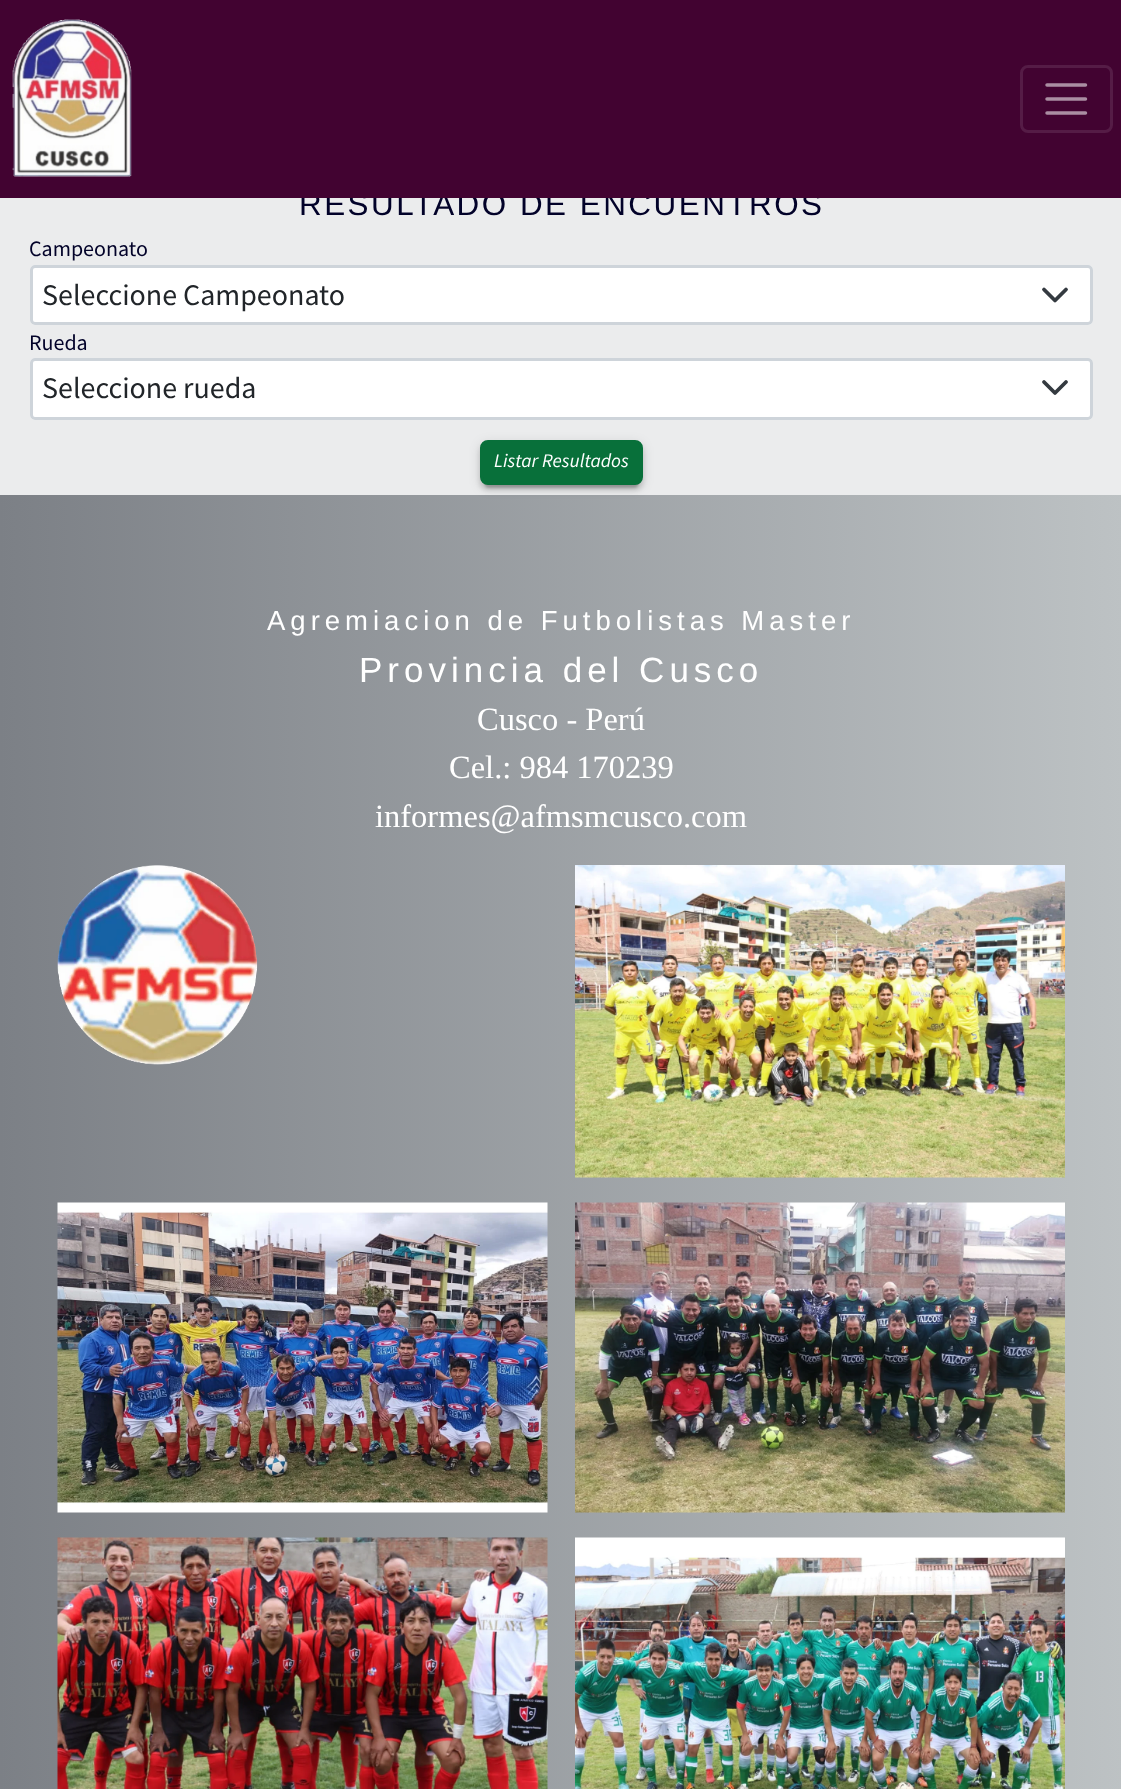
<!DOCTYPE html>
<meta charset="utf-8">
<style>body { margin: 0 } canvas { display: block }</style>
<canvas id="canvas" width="1121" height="1789"></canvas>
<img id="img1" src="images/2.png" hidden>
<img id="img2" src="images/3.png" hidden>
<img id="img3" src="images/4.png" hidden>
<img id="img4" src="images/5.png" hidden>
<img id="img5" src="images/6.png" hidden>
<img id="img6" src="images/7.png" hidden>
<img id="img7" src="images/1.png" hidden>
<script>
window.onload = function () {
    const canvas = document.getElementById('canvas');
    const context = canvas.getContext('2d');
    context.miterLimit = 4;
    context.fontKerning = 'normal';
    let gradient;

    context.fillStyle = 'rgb(235, 236, 237)';
    context.fillRect(0, 0, 1121, 1789);
    context.fillStyle = 'rgb(255, 255, 255)';
    context.beginPath();
    context.roundRect(30, 265, 1063, 60, 5);
    context.fill();
    context.beginPath();
    context.moveTo(1044, 289.5);
    context.lineTo(1055, 300.5);
    context.lineTo(1066, 289.5);
    context.strokeStyle = 'rgb(52, 58, 64)';
    context.lineWidth = 3.8;
    context.lineCap = 'round';
    context.lineJoin = 'round';
    context.stroke();
    context.beginPath();
    context.roundRect(31.5, 266.5, 1060, 57, 3.5);
    context.strokeStyle = 'rgb(206, 212, 218)';
    context.lineWidth = 3;
    context.lineJoin = 'miter';
    context.stroke();
    context.beginPath();
    context.roundRect(30, 358, 1063, 62, 5);
    context.fill();
    context.beginPath();
    context.moveTo(1044, 382);
    context.lineTo(1055, 393);
    context.lineTo(1066, 382);
    context.strokeStyle = 'rgb(52, 58, 64)';
    context.lineWidth = 3.8;
    context.lineJoin = 'round';
    context.stroke();
    context.beginPath();
    context.roundRect(31.5, 359.5, 1060, 59, 3.5);
    context.strokeStyle = 'rgb(206, 212, 218)';
    context.lineWidth = 3;
    context.lineJoin = 'miter';
    context.stroke();
    gradient = context.createLinearGradient(0, 1253, 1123, 1253);
    gradient.addColorStop(0, 'rgb(124, 128, 134)');
    gradient.addColorStop(1, 'rgb(189, 194, 196)');
    context.fillStyle = gradient;
    context.fillRect(0, 495, 1121, 1294);
    context.fillStyle = 'rgba(0, 0, 0, 0.12)';
    context.filter = 'blur(6px)';
    context.beginPath();
    context.roundRect(480, 443, 163, 45, 8);
    context.fill();
    context.filter = 'none';
    context.fillStyle = 'rgba(0, 0, 0, 0.14)';
    context.filter = 'blur(2.5px)';
    context.beginPath();
    context.roundRect(480, 445, 163, 45, 8);
    context.fill();
    context.filter = 'none';
    context.fillStyle = 'rgba(0, 0, 0, 0.2)';
    context.filter = 'blur(1px)';
    context.beginPath();
    context.roundRect(485, 453, 153, 35, 4);
    context.fill();
    context.filter = 'none';
    context.fillStyle = 'rgb(8, 112, 58)';
    context.beginPath();
    context.roundRect(481.5, 441.5, 160, 42, 6.5);
    context.fill();
    context.strokeStyle = 'rgb(8, 112, 58)';
    context.stroke();
    context.drawImage(document.getElementById('img1'), 57, 865, 201, 200);
    context.drawImage(document.getElementById('img2'), 575, 865, 490, 313);
    context.drawImage(document.getElementById('img3'), 57, 1202, 491, 311);
    context.drawImage(document.getElementById('img4'), 575, 1202, 490, 311);
    context.drawImage(document.getElementById('img5'), 57, 1537, 491, 252);
    context.drawImage(document.getElementById('img6'), 575, 1537, 490, 252);
    context.letterSpacing = '2.5px';
    context.font = '31.4px Liberation Sans';
    context.fillStyle = 'rgb(2, 2, 41)';
    context.fillText('RESULTADO DE ENCUENTROS', 299, 215);
    context.fillStyle = 'rgb(66, 3, 49)';
    context.fillRect(0, 0, 1121, 198);
    context.beginPath();
    context.roundRect(1021.5, 66.5, 90, 65, 6.5);
    context.strokeStyle = 'rgb(85, 28, 70)';
    context.stroke();
    context.beginPath();
    context.moveTo(1047, 85);
    context.lineTo(1085.5, 85);
    context.moveTo(1047, 99);
    context.lineTo(1085.5, 99);
    context.moveTo(1047, 113);
    context.lineTo(1085.5, 113);
    context.strokeStyle = 'rgb(170, 142, 162)';
    context.lineWidth = 3.5;
    context.stroke();
    context.drawImage(document.getElementById('img7'), 12, 19, 120, 158);
    context.letterSpacing = '0px';
    context.font = '22px Source Sans Pro';
    context.fillStyle = 'rgb(2, 2, 41)';
    context.fillText('Campeonato', 29, 256);
    context.font = '30px Source Sans Pro';
    context.fillStyle = 'rgb(33, 37, 41)';
    context.fillText('Seleccione Campeonato', 42, 305);
    context.font = '22px Source Sans Pro';
    context.fillStyle = 'rgb(2, 2, 41)';
    context.fillText('Rueda', 29, 350);
    context.font = '30px Source Sans Pro';
    context.fillStyle = 'rgb(33, 37, 41)';
    context.fillText('Seleccione rueda', 42, 398);
    context.font = 'italic 19.25px Source Sans Pro';
    context.fillStyle = 'rgb(255, 255, 255)';
    context.fillText('Listar Resultados', 494, 467);
    context.letterSpacing = '5px';
    context.font = '27.5px Liberation Sans';
    context.fillText('Agremiacion de Futbolistas Master', 267, 630);
    context.font = '35px Liberation Sans';
    context.fillText('Provincia del Cusco', 359, 682);
    context.letterSpacing = '0px';
    context.font = '32.5px Liberation Serif';
    context.fillText('Cusco - Perú', 477, 730);
    context.fillText('Cel.: 984 170239', 449, 778);
    context.fillText('informes@afmsmcusco.com', 375, 827);
};
</script>
